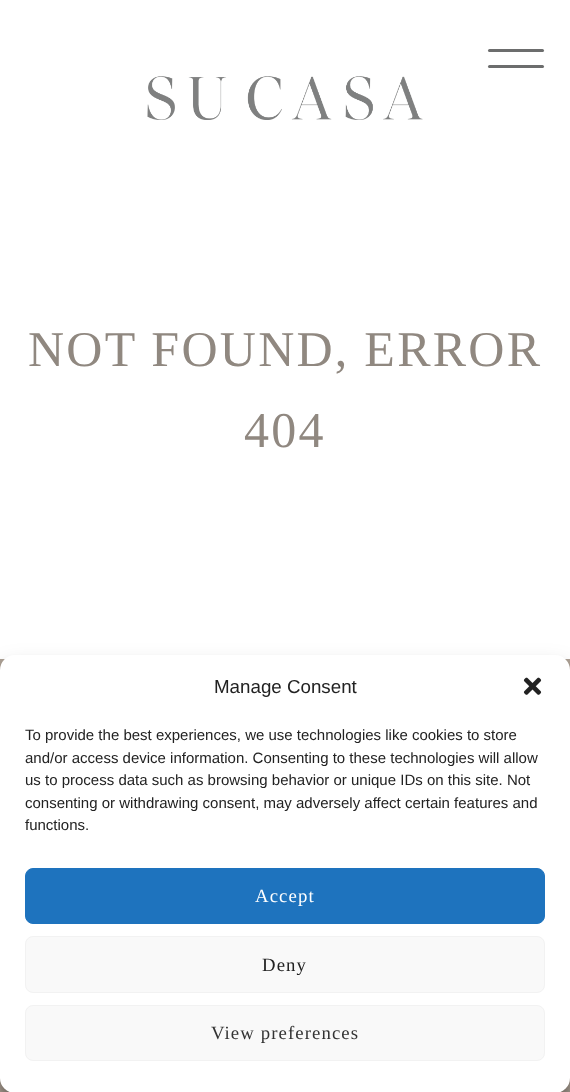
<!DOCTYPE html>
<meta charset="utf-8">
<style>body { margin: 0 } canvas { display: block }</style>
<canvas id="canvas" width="570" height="1092"></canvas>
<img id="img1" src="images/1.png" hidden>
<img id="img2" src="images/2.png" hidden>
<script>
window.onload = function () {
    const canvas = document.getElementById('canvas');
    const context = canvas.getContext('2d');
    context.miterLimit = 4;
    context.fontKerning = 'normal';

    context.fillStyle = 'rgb(255, 255, 255)';
    context.fillRect(0, 0, 570, 1092);
    context.fillStyle = 'rgb(108, 109, 109)';
    context.beginPath();
    context.roundRect(488, 49, 56, 3, 1.5);
    context.fill();
    context.beginPath();
    context.roundRect(488, 65, 56, 3, 1.5);
    context.fill();
    context.drawImage(document.getElementById('img1'), 147, 76, 276, 44);
    context.fillStyle = 'rgb(174, 162, 150)';
    context.fillRect(0, 659, 570, 433);
    context.fillStyle = 'rgba(0, 0, 0, 0.23)';
    context.filter = 'blur(4px)';
    context.beginPath();
    context.roundRect(0, 663, 570, 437, 15);
    context.fill();
    context.filter = 'none';
    context.fillStyle = 'rgba(0, 0, 0, 0.19)';
    context.filter = 'blur(12.5px)';
    context.beginPath();
    context.roundRect(0, 668, 570, 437, 15);
    context.fill();
    context.filter = 'none';
    context.fillStyle = 'rgb(255, 255, 255)';
    context.beginPath();
    context.roundRect(0, 655, 570, 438, 15);
    context.fill();
    context.drawImage(document.getElementById('img2'), 523, 677, 19, 18);
    context.fillStyle = 'rgb(30, 115, 190)';
    context.beginPath();
    context.roundRect(25.5, 868.5, 519, 55, 7.5);
    context.fill();
    context.strokeStyle = 'rgb(30, 115, 190)';
    context.stroke();
    context.fillStyle = 'rgb(249, 249, 249)';
    context.beginPath();
    context.roundRect(25.5, 936.5, 519, 56, 7.5);
    context.fill();
    context.strokeStyle = 'rgb(242, 242, 242)';
    context.stroke();
    context.beginPath();
    context.roundRect(25.5, 1005.5, 519, 55, 7.5);
    context.fill();
    context.stroke();
    context.letterSpacing = '2.25px';
    context.font = '50px Liberation Serif';
    context.fillStyle = 'rgb(144, 136, 128)';
    context.fillText('NOT FOUND, ERROR', 28, 366);
    context.fillText('404', 244, 447);
    context.letterSpacing = '0px';
    context.font = '18.75px Liberation Sans';
    context.fillStyle = 'rgb(34, 34, 34)';
    context.fillText('Manage Consent', 214, 693);
    context.font = '15px Liberation Sans';
    context.fillText('To provide the best experiences, we use technologies like cookies to store', 25, 740);
    context.fillText('and/or access device information. Consenting to these technologies will allow', 25, 763);
    context.fillText('us to process data such as browsing behavior or unique IDs on this site. Not', 25, 785);
    context.fillText('consenting or withdrawing consent, may adversely affect certain features and', 25, 808);
    context.fillText('functions.', 25, 830);
    context.letterSpacing = '1.1px';
    context.font = '18.75px Liberation Serif';
    context.fillStyle = 'rgb(255, 255, 255)';
    context.fillText('Accept', 255, 902);
    context.fillStyle = 'rgb(34, 34, 34)';
    context.fillText('Deny', 262, 971);
    context.fillStyle = 'rgb(51, 51, 51)';
    context.fillText('View preferences', 211, 1039);
};
</script>
